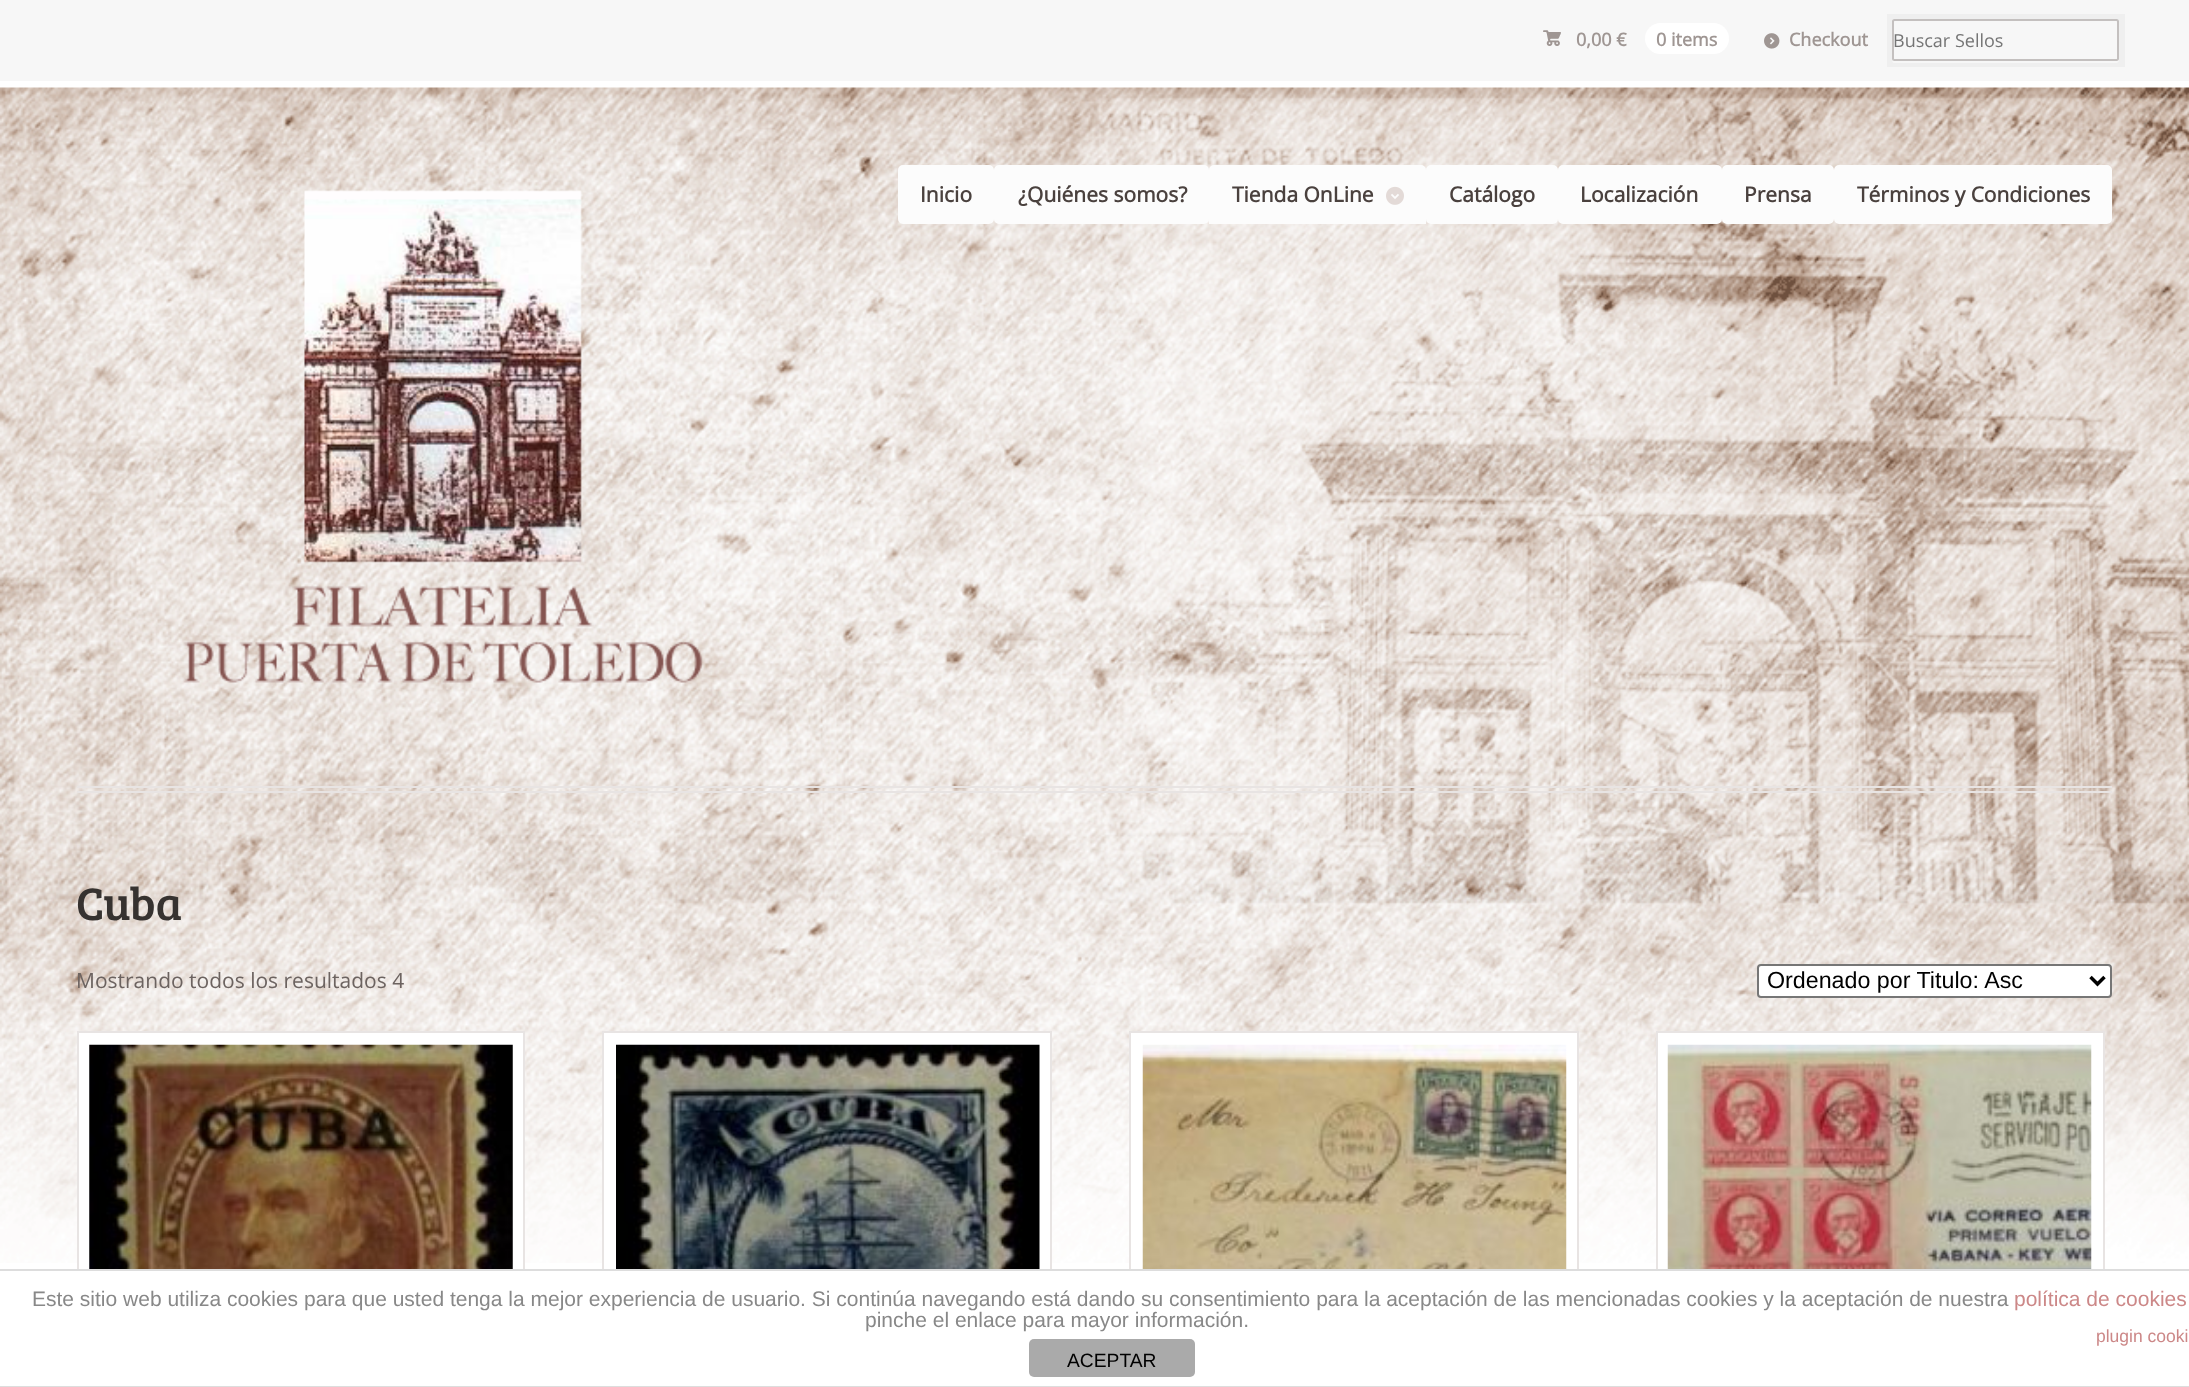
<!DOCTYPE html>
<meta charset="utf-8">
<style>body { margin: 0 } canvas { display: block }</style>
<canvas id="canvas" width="2189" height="1387"></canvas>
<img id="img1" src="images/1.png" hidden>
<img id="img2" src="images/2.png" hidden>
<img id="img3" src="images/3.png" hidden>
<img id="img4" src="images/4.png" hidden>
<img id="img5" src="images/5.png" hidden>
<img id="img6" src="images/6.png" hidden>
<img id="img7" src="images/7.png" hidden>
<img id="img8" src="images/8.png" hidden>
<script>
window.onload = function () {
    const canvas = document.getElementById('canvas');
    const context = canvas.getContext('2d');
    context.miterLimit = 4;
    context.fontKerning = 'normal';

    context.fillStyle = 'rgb(255, 255, 255)';
    context.fillRect(0, 0, 2189, 1387);
    context.drawImage(document.getElementById('img1'), 0, 87, 2189, 1176);
    context.fillStyle = 'rgb(247, 247, 247)';
    context.fillRect(0, 0, 2189, 81);
    context.fillStyle = 'rgb(255, 255, 255)';
    context.beginPath();
    context.roundRect(1645, 23, 84, 31, 15.5);
    context.fill();
    context.drawImage(document.getElementById('img2'), 1764, 33, 16, 16);
    context.beginPath();
    context.moveTo(1892, 60);
    context.bezierCurveTo(1892, 62, 1893, 63, 1894, 63);
    context.lineTo(2116, 63);
    context.bezierCurveTo(2118, 63, 2119, 62, 2119, 60);
    context.lineTo(2117, 61);
    context.lineTo(1894, 61);
    context.closePath();
    context.fill();
    context.strokeStyle = 'rgba(0, 0, 0, 0.03)';
    context.lineWidth = 6;
    context.strokeRect(1890, 17, 232, 47);
    context.fillStyle = 'rgb(247, 247, 247)';
    context.beginPath();
    context.roundRect(1893, 20, 225, 40, 1.5);
    context.fill();
    context.strokeStyle = 'rgb(196, 192, 191)';
    context.lineWidth = 2;
    context.stroke();
    context.fillStyle = 'rgb(232, 228, 227)';
    context.fillRect(77, 786, 2035, 2);
    context.fillRect(77, 791, 2035, 2);
    context.drawImage(document.getElementById('img3'), 183, 190, 520, 493);
    context.fillStyle = 'rgb(252, 252, 252)';
    context.beginPath();
    context.roundRect(899, 166, 94, 57, 4);
    context.fill();
    context.strokeStyle = 'rgb(252, 252, 252)';
    context.stroke();
    context.beginPath();
    context.roundRect(995, 166, 213, 57, 4);
    context.fill();
    context.stroke();
    context.beginPath();
    context.roundRect(1210, 166, 215, 57, [4, 4, 0, 0]);
    context.fill();
    context.stroke();
    context.drawImage(document.getElementById('img4'), 1386, 186, 18, 19);
    context.beginPath();
    context.roundRect(1427, 166, 130, 57, 4);
    context.fill();
    context.stroke();
    context.beginPath();
    context.roundRect(1559, 166, 162, 57, 4);
    context.fill();
    context.stroke();
    context.beginPath();
    context.roundRect(1723, 166, 110, 57, 4);
    context.fill();
    context.stroke();
    context.beginPath();
    context.roundRect(1835, 166, 276, 57, 4);
    context.fill();
    context.stroke();
    context.fillStyle = 'rgb(255, 255, 255)';
    context.beginPath();
    context.roundRect(1758, 965, 353, 32, 3);
    context.fill();
    context.strokeStyle = 'rgb(118, 118, 118)';
    context.stroke();
    context.beginPath();
    context.moveTo(2090.5, 977);
    context.lineTo(2097.5, 984);
    context.lineTo(2104.5, 977);
    context.strokeStyle = 'rgb(0, 0, 0)';
    context.lineWidth = 3.5;
    context.stroke();
    context.fillRect(79, 1033, 444, 230);
    context.strokeStyle = 'rgb(232, 228, 227)';
    context.lineWidth = 2;
    context.strokeRect(78, 1032, 446, 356);
    context.drawImage(document.getElementById('img5'), 89, 1044, 424, 225);
    context.fillRect(604, 1033, 446, 230);
    context.strokeRect(603, 1032, 448, 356);
    context.drawImage(document.getElementById('img6'), 616, 1044, 424, 225);
    context.fillRect(1131, 1033, 446, 230);
    context.strokeRect(1130, 1032, 448, 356);
    context.drawImage(document.getElementById('img7'), 1142, 1044, 425, 225);
    context.fillRect(1658, 1033, 445, 230);
    context.strokeRect(1657, 1032, 447, 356);
    context.drawImage(document.getElementById('img8'), 1667, 1044, 425, 225);
    context.fillRect(77, 1271, 2028, 115);
    context.fillStyle = 'rgb(221, 221, 221)';
    context.fillRect(0, 1269, 2189, 2);
    context.fillRect(0, 1386, 2189, 1);
    context.fillStyle = 'rgb(170, 170, 170)';
    context.beginPath();
    context.roundRect(1029, 1339, 166, 38, 5);
    context.fill();
    context.font = '18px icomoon';
    context.fillStyle = 'rgb(159, 150, 147)';
    context.fillText('£', 1543, 46);
    context.font = 'bold 18px Open Sans';
    context.fillText('0,00 €', 1576, 46);
    context.fillText('0 items', 1656, 46);
    context.fillText('Checkout', 1789, 46);
    context.font = '18px Open Sans';
    context.fillStyle = 'rgb(117, 117, 117)';
    context.fillText('Buscar Sellos', 1893, 47);
    context.font = 'bold 21px Open Sans';
    context.fillStyle = 'rgb(74, 65, 62)';
    context.fillText('Inicio', 920, 202);
    context.fillText('¿Quiénes somos?', 1018, 202);
    context.fillText('Tienda OnLine', 1232, 202);
    context.fillText('Catálogo', 1449, 202);
    context.fillText('Localización', 1580, 202);
    context.fillText('Prensa', 1744, 202);
    context.fillText('Términos y Condiciones', 1857, 202);
    context.font = '47px Bree Serif';
    context.fillStyle = 'rgb(54, 50, 48)';
    context.fillText('Cuba', 76, 920);
    context.font = '21px Open Sans';
    context.fillStyle = 'rgb(108, 99, 96)';
    context.fillText('Mostrando todos los resultados 4', 76, 988);
    context.font = '23.25px Liberation Sans';
    context.fillStyle = 'rgb(0, 0, 0)';
    context.fillText('Ordenado por Titulo: Asc', 1767, 988);
    context.font = '21px Liberation Sans';
    context.fillStyle = 'rgb(136, 136, 136)';
    context.fillText('Este sitio web utiliza cookies para que usted tenga la mejor experiencia de usuario. Si continúa navegando está dando su consentimiento para la aceptación de las mencionadas cookies y la aceptación de nuestra', 32, 1306);
    context.fillStyle = 'rgb(204, 136, 136)';
    context.fillText('política de cookies', 2014, 1306);
    context.fillStyle = 'rgb(136, 136, 136)';
    context.fillText('pinche el enlace para mayor información.', 865, 1327);
    context.font = '17.5px Liberation Sans';
    context.fillStyle = 'rgb(204, 136, 136)';
    context.fillText('plugin cooki', 2096, 1342);
    context.font = '19.25px Liberation Sans';
    context.fillStyle = 'rgb(0, 0, 0)';
    context.fillText('ACEPTAR', 1067, 1367);
};
</script>
